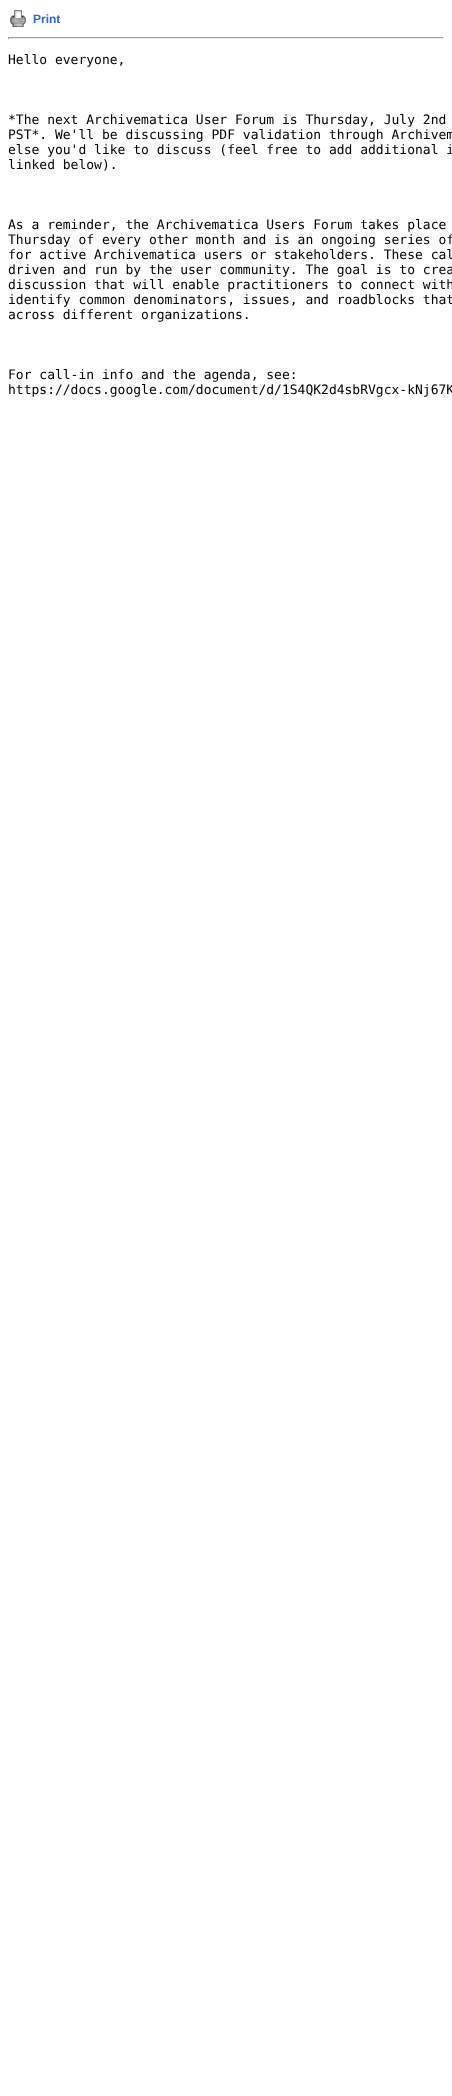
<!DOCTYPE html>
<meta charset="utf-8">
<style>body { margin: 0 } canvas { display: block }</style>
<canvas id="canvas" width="452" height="2096"></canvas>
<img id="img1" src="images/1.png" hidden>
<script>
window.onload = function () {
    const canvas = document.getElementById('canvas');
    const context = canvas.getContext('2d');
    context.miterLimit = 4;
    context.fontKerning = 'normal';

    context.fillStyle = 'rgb(255, 255, 255)';
    context.fillRect(0, 0, 452, 2096);
    context.drawImage(document.getElementById('img1'), 10, 10, 16, 17);
    context.fillStyle = 'rgb(159, 159, 159)';
    context.fillRect(8, 37, 436, 1);
    context.fillStyle = 'rgb(238, 238, 238)';
    context.fillRect(443, 37, 1, 2);
    context.fillRect(8, 38, 436, 1);
    context.fillStyle = 'rgb(159, 159, 159)';
    context.fillRect(8, 37, 1, 2);
    context.font = 'bold 12px Liberation Sans';
    context.fillStyle = 'rgb(51, 102, 204)';
    context.fillText('Print', 33, 23);
    context.font = '13px DejaVu Sans Mono';
    context.fillStyle = 'rgb(0, 0, 0)';
    context.fillText('Hello everyone,', 8, 64);
    context.fillText('*The next Archivematica User Forum is Thursday, July 2nd', 8, 124);
    context.fillText('PST*. We\'ll be discussing PDF validation through Archivem', 8, 139);
    context.fillText('else you\'d like to discuss (feel free to add additional i', 8, 154);
    context.fillText('linked below).', 8, 169);
    context.fillText('As a reminder, the Archivematica Users Forum takes place', 8, 229);
    context.fillText('Thursday of every other month and is an ongoing series of', 8, 244);
    context.fillText('for active Archivematica users or stakeholders. These cal', 8, 259);
    context.fillText('driven and run by the user community. The goal is to crea', 8, 274);
    context.fillText('discussion that will enable practitioners to connect with', 8, 289);
    context.fillText('identify common denominators, issues, and roadblocks that', 8, 304);
    context.fillText('across different organizations.', 8, 319);
    context.fillText('For call-in info and the agenda, see:', 8, 379);
    context.fillText('https://docs.google.com/document/d/1S4QK2d4sbRVgcx-kNj67K', 8, 394);
};
</script>
